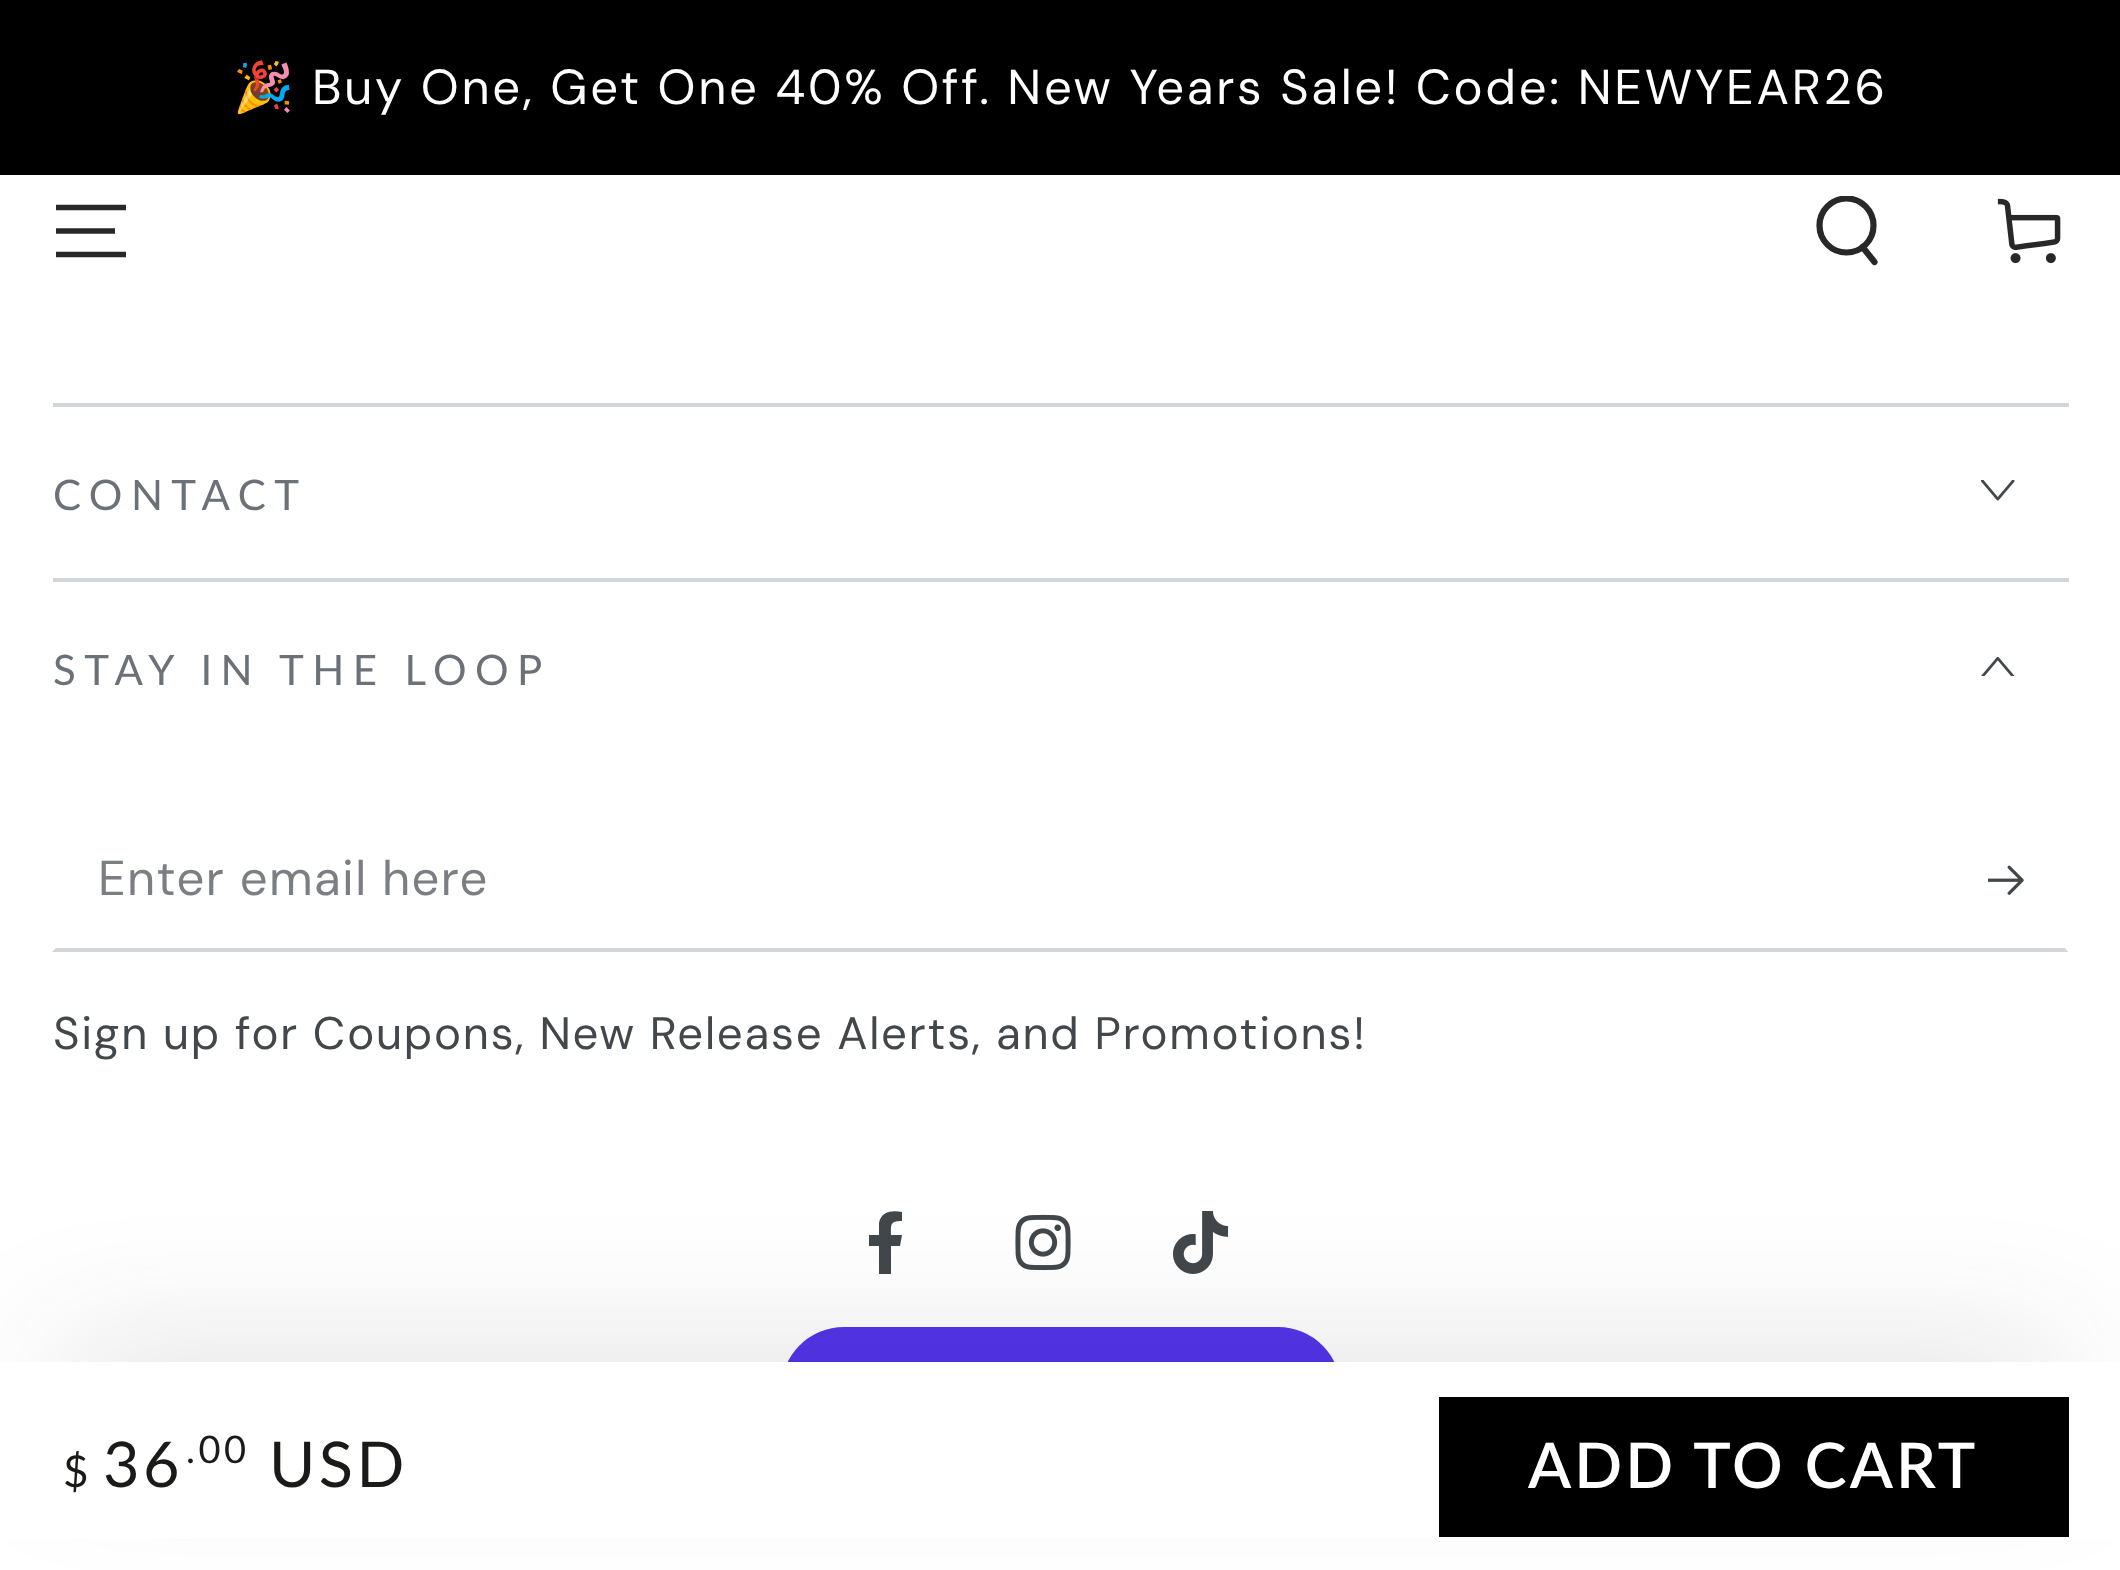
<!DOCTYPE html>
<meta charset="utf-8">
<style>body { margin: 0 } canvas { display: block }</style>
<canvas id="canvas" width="2120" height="1570"></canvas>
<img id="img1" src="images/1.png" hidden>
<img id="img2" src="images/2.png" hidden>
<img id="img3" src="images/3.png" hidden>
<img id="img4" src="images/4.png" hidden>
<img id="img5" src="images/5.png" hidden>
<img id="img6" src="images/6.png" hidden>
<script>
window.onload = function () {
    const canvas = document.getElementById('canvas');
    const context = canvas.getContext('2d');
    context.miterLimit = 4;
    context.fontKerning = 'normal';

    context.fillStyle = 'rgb(255, 255, 255)';
    context.fillRect(0, 0, 2120, 1570);
    context.fillStyle = 'rgb(0, 0, 0)';
    context.fillRect(0, 0, 2120, 175);
    context.beginPath();
    context.moveTo(56, 254.5);
    context.lineTo(126, 254.5);
    context.moveTo(56, 231);
    context.lineTo(115, 231);
    context.moveTo(56, 207.5);
    context.lineTo(126, 207.5);
    context.strokeStyle = 'rgb(40, 40, 40)';
    context.lineWidth = 5.7;
    context.stroke();
    context.save();
    context.beginPath();
    context.rect(1813, 196, 70, 70);
    context.clip();
    context.beginPath();
    context.arc(1846.5, 225.5, 27, 0, 2 * Math.PI);
    context.lineWidth = 6.2;
    context.stroke();
    context.restore();
    context.beginPath();
    context.moveTo(1862.5, 247);
    context.lineTo(1874.5, 262);
    context.lineWidth = 6.2;
    context.lineCap = 'round';
    context.stroke();
    context.drawImage(document.getElementById('img1'), 1997, 198, 64, 66);
    context.fillStyle = 'rgb(210, 213, 217)';
    context.fillRect(53, 403, 2016, 4);
    context.fillRect(53, 578, 2016, 4);
    context.drawImage(document.getElementById('img2'), 1981, 480, 34, 21);
    context.drawImage(document.getElementById('img3'), 1981, 656, 34, 20);
    context.beginPath();
    context.moveTo(2068, 952);
    context.lineTo(52, 952);
    context.lineTo(56, 948);
    context.lineTo(2065, 948);
    context.closePath();
    context.fill();
    context.drawImage(document.getElementById('img4'), 1988, 865, 36, 30);
    context.fillStyle = 'rgb(66, 71, 76)';
    context.beginPath();
    context.moveTo(900, 1246);
    context.lineTo(902, 1235);
    context.lineTo(891, 1235);
    context.bezierCurveTo(891, 1224, 890, 1221, 902, 1221);
    context.lineTo(902, 1212);
    context.bezierCurveTo(893, 1210, 881, 1211, 879, 1223);
    context.lineTo(879, 1235);
    context.lineTo(869, 1235);
    context.lineTo(869, 1246);
    context.lineTo(879, 1246);
    context.lineTo(879, 1274);
    context.lineTo(891, 1274);
    context.lineTo(891, 1246);
    context.closePath();
    context.fill();
    context.drawImage(document.getElementById('img5'), 1015, 1214, 56, 57);
    context.drawImage(document.getElementById('img6'), 1173, 1211, 56, 63);
    context.fillStyle = 'rgb(84, 51, 235)';
    context.beginPath();
    context.roundRect(781, 1327, 560, 126, 63);
    context.fill();
    context.fillStyle = 'rgba(33, 35, 38, 0.2)';
    context.filter = 'blur(70px)';
    context.beginPath();
    context.roundRect(53, 1362, 2016, 70, 35);
    context.fill();
    context.filter = 'none';
    context.fillStyle = 'rgb(255, 255, 255)';
    context.fillRect(0, 1362, 2120, 177);
    context.fillStyle = 'rgb(0, 0, 0)';
    context.fillRect(1439, 1397, 630, 140);
    context.letterSpacing = '2.73px';
    context.font = '49px Noto Color Emoji';
    context.fillStyle = 'rgb(255, 255, 255)';
    context.fillText('🎉', 233, 104);
    context.font = '49px "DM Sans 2"';
    context.fillText('Buy One, Get One 40% Off. New Years Sale! Code: NEWYEAR26', 312, 104);
    context.letterSpacing = '8.4px';
    context.font = '42px Lato';
    context.fillStyle = 'rgb(107, 113, 119)';
    context.fillText('CONTACT', 53, 510);
    context.fillText('STAY IN THE LOOP', 53, 685);
    context.letterSpacing = '1.4px';
    context.font = '49px "DM Sans 2"';
    context.fillStyle = 'rgb(123, 126, 130)';
    context.fillText('Enter email here', 98, 895);
    context.letterSpacing = '1.75px';
    context.font = '45.5px DM Sans';
    context.fillStyle = 'rgb(66, 71, 76)';
    context.fillText('Sign up for Coupons, New Release Alerts, and Promotions!', 53, 1049);
    context.letterSpacing = '3.5px';
    context.font = '44px Lato';
    context.fillStyle = 'rgb(26, 27, 24)';
    context.fillText('$', 63, 1487);
    context.font = '63px Lato';
    context.fillText('36', 103, 1487);
    context.font = '38px Lato';
    context.fillText('.00', 186, 1463);
    context.font = '63px Lato';
    context.fillText('USD', 269, 1487);
    context.letterSpacing = '3.1px';
    context.font = '600 63px Lato';
    context.fillStyle = 'rgb(255, 255, 255)';
    context.fillText('ADD TO CART', 1528, 1488);
};
</script>
